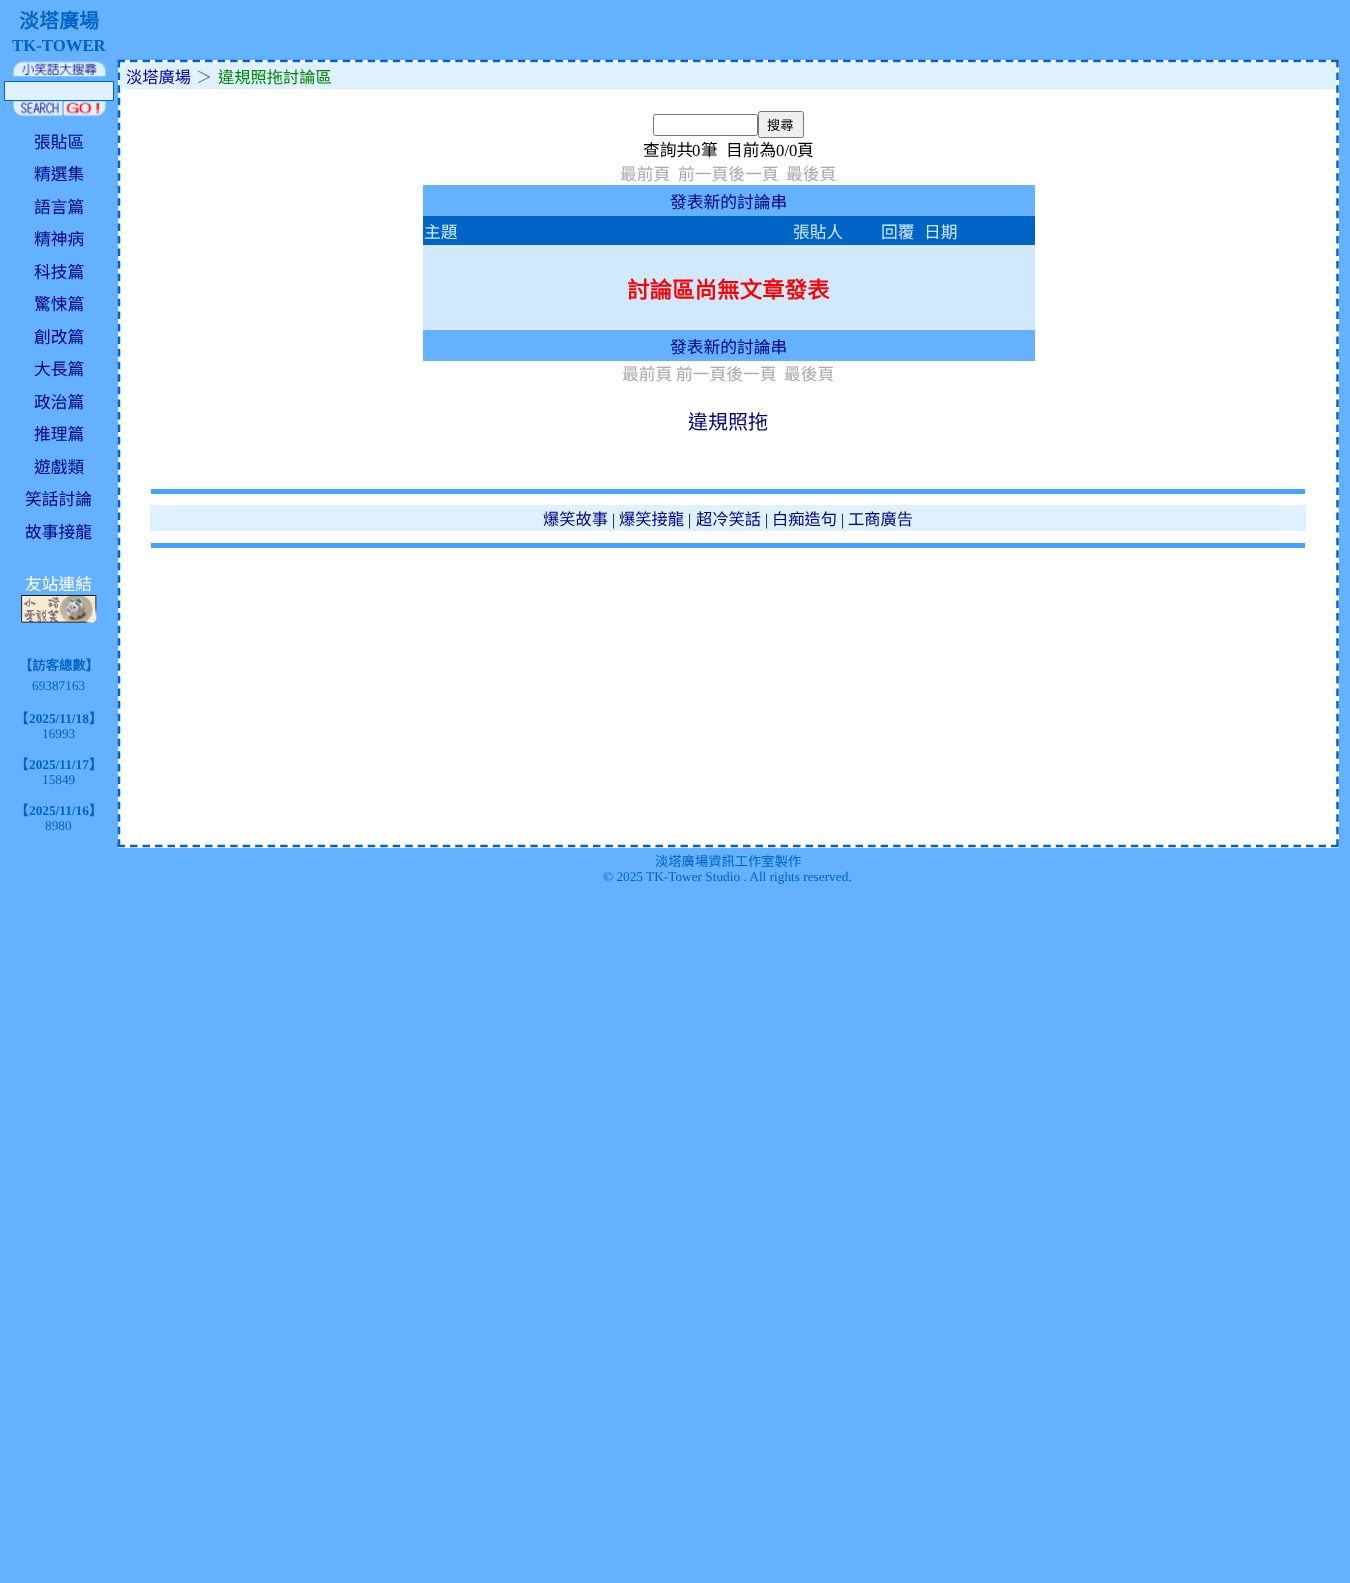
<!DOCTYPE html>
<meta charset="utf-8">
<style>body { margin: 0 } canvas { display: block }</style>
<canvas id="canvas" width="1350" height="1583"></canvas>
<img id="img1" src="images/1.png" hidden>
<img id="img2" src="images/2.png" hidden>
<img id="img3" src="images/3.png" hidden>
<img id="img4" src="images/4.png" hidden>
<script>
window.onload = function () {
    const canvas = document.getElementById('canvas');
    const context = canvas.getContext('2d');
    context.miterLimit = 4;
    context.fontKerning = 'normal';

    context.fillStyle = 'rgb(99, 177, 255)';
    context.fillRect(0, 0, 1350, 1583);
    context.drawImage(document.getElementById('img1'), 12, 61, 95, 16);
    context.fillStyle = 'rgb(223, 240, 255)';
    context.beginPath();
    context.rect(4.5, 81.5, 109, 19);
    context.fill();
    context.strokeStyle = 'rgb(0, 99, 198)';
    context.stroke();
    context.drawImage(document.getElementById('img2'), 12, 101, 51, 16);
    context.drawImage(document.getElementById('img3'), 62, 101, 45, 16);
    context.drawImage(document.getElementById('img4'), 21, 595, 76, 28);
    context.fillStyle = 'rgb(255, 255, 255)';
    context.fillRect(118, 60, 1221, 788);
    context.beginPath();
    context.moveTo(117.5, 61);
    context.lineTo(1339, 61);
    context.lineWidth = 2.5;
    context.setLineDash([7.5, 5.01]);
    context.stroke();
    context.beginPath();
    context.moveTo(1337.5, 60);
    context.lineTo(1337.5, 847.5);
    context.setLineDash([7.5, 5.07]);
    context.stroke();
    context.beginPath();
    context.moveTo(117.5, 846);
    context.lineTo(1339, 846);
    context.setLineDash([7.5, 5.01]);
    context.stroke();
    context.beginPath();
    context.moveTo(119, 60);
    context.lineTo(119, 847.5);
    context.setLineDash([7.5, 5.07]);
    context.stroke();
    context.fillStyle = 'rgb(223, 240, 255)';
    context.fillRect(120, 63, 1216, 26);
    context.beginPath();
    context.roundRect(653.5, 114.5, 104, 21, 2);
    context.strokeStyle = 'rgb(118, 118, 118)';
    context.lineWidth = 1;
    context.setLineDash([]);
    context.stroke();
    context.fillStyle = 'rgb(239, 239, 239)';
    context.beginPath();
    context.roundRect(758.5, 111.5, 45, 26, 2);
    context.fill();
    context.stroke();
    context.fillStyle = 'rgb(208, 233, 255)';
    context.fillRect(423, 245, 612, 85);
    context.fillStyle = 'rgb(99, 177, 255)';
    context.fillRect(423, 185, 612, 31);
    context.fillStyle = 'rgb(0, 99, 198)';
    context.fillRect(423, 216, 612, 29);
    context.fillStyle = 'rgb(99, 177, 255)';
    context.fillRect(423, 330, 612, 31);
    context.fillStyle = 'rgb(70, 162, 255)';
    context.fillRect(151, 489, 1154, 5);
    context.fillStyle = 'rgb(223, 240, 255)';
    context.fillRect(150, 505, 1156, 26);
    context.fillStyle = 'rgb(70, 162, 255)';
    context.fillRect(151, 543, 1154, 5);
    context.font = 'bold 20px Noto Sans CJK TC';
    context.fillStyle = 'rgb(0, 99, 198)';
    context.fillText('淡塔廣場', 19, 28);
    context.font = 'bold 16.75px Liberation Serif';
    context.fillText('TK-TOWER', 12, 51);
    context.font = '16.75px Noto Sans CJK TC';
    context.fillStyle = 'rgb(0, 0, 128)';
    context.fillText('張貼區', 34, 148);
    context.fillText('精選集', 34, 180);
    context.fillText('語言篇', 34, 213);
    context.fillText('精神病', 34, 245);
    context.fillText('科技篇', 34, 278);
    context.fillText('驚悚篇', 34, 310);
    context.fillText('創改篇', 34, 343);
    context.fillText('大長篇', 34, 375);
    context.fillText('政治篇', 34, 408);
    context.fillText('推理篇', 34, 440);
    context.fillText('遊戲類', 34, 473);
    context.fillText('笑話討論', 25, 505);
    context.fillText('故事接龍', 25, 538);
    context.fillStyle = 'rgb(255, 255, 255)';
    context.fillText('友站連結', 25, 590);
    context.font = 'bold 13.3px Noto Sans CJK TC';
    context.fillStyle = 'rgb(0, 99, 198)';
    context.fillText('【訪客總數】', 19, 670);
    context.font = '13.3px Liberation Serif';
    context.fillText('69387163', 32, 690);
    context.font = 'bold 13.3px Noto Sans CJK TC';
    context.fillText('【', 15, 723);
    context.font = 'bold 13.3px Liberation Serif';
    context.fillText('2025/11/18', 29, 723);
    context.font = 'bold 13.3px Noto Sans CJK TC';
    context.fillText('】', 89, 723);
    context.font = '13.3px Liberation Serif';
    context.fillText('16993', 42, 738);
    context.font = 'bold 13.3px Noto Sans CJK TC';
    context.fillText('【', 15, 769);
    context.font = 'bold 13.3px Liberation Serif';
    context.fillText('2025/11/17', 29, 769);
    context.font = 'bold 13.3px Noto Sans CJK TC';
    context.fillText('】', 89, 769);
    context.font = '13.3px Liberation Serif';
    context.fillText('15849', 42, 784);
    context.font = 'bold 13.3px Noto Sans CJK TC';
    context.fillText('【', 15, 815);
    context.font = 'bold 13.3px Liberation Serif';
    context.fillText('2025/11/16', 29, 815);
    context.font = 'bold 13.3px Noto Sans CJK TC';
    context.fillText('】', 89, 815);
    context.font = '13.3px Liberation Serif';
    context.fillText('8980', 45, 830);
    context.font = '16.25px Noto Sans CJK TC';
    context.fillStyle = 'rgb(0, 0, 170)';
    context.fillText('淡塔廣場', 126, 83);
    context.fillStyle = 'rgb(128, 128, 128)';
    context.fillText('＞', 196, 83);
    context.fillStyle = 'rgb(0, 136, 0)';
    context.fillText('違規照拖討論區', 218, 83);
    context.font = '13.3px Noto Sans CJK TC';
    context.fillStyle = 'rgb(0, 0, 0)';
    context.fillText('搜尋', 767, 130);
    context.font = '16.75px Noto Sans CJK TC';
    context.fillText('查詢共', 643, 156);
    context.font = '16.75px Liberation Serif';
    context.fillText('0', 692, 156);
    context.font = '16.75px Noto Sans CJK TC';
    context.fillText('筆', 701, 156);
    context.fillText('目前為', 726, 156);
    context.font = '16.75px Liberation Serif';
    context.fillText('0/0', 776, 156);
    context.font = '16.75px Noto Sans CJK TC';
    context.fillText('頁', 797, 156);
    context.fillStyle = 'rgb(170, 170, 170)';
    context.fillText('最前頁', 620, 180);
    context.fillText('前一頁後一頁', 678, 180);
    context.fillText('最後頁', 786, 180);
    context.fillStyle = 'rgb(0, 0, 128)';
    context.fillText('發表新的討論串', 670, 208);
    context.fillStyle = 'rgb(208, 233, 255)';
    context.fillText('主題', 424, 238);
    context.fillText('張貼人', 793, 238);
    context.fillText('回覆', 881, 238);
    context.fillText('日期', 924, 238);
    context.font = 'bold 22.5px Noto Sans CJK TC';
    context.fillStyle = 'rgb(255, 0, 0)';
    context.fillText('討論區尚無文章發表', 627, 298);
    context.font = '16.75px Noto Sans CJK TC';
    context.fillStyle = 'rgb(0, 0, 128)';
    context.fillText('發表新的討論串', 670, 353);
    context.fillStyle = 'rgb(170, 170, 170)';
    context.fillText('最前頁', 622, 380);
    context.fillText('前一頁後一頁', 676, 380);
    context.fillText('最後頁', 784, 380);
    context.font = '20px Noto Sans CJK TC';
    context.fillStyle = 'rgb(0, 0, 128)';
    context.fillText('違規照拖', 688, 429);
    context.font = '16.25px Noto Sans CJK TC';
    context.fillText('爆笑故事', 543, 525);
    context.font = '16.25px Liberation Serif';
    context.fillStyle = 'rgb(0, 0, 0)';
    context.fillText('|', 612, 525);
    context.font = '16.25px Noto Sans CJK TC';
    context.fillStyle = 'rgb(0, 0, 128)';
    context.fillText('爆笑接龍', 619, 525);
    context.font = '16.25px Liberation Serif';
    context.fillStyle = 'rgb(0, 0, 0)';
    context.fillText('|', 688, 525);
    context.font = '16.25px Noto Sans CJK TC';
    context.fillStyle = 'rgb(0, 0, 128)';
    context.fillText('超冷笑話', 696, 525);
    context.font = '16.25px Liberation Serif';
    context.fillStyle = 'rgb(0, 0, 0)';
    context.fillText('|', 765, 525);
    context.font = '16.25px Noto Sans CJK TC';
    context.fillStyle = 'rgb(0, 0, 128)';
    context.fillText('白痴造句', 772, 525);
    context.font = '16.25px Liberation Serif';
    context.fillStyle = 'rgb(0, 0, 0)';
    context.fillText('|', 841, 525);
    context.font = '16.25px Noto Sans CJK TC';
    context.fillStyle = 'rgb(0, 0, 128)';
    context.fillText('工商廣告', 848, 525);
    context.font = '13.3px Noto Sans CJK TC';
    context.fillStyle = 'rgb(0, 99, 198)';
    context.fillText('淡塔廣場資訊工作室製作', 655, 866);
    context.font = '13.3px Liberation Serif';
    context.fillText('© 2025 TK-Tower Studio . All rights reserved.', 603, 881);
};
</script>
